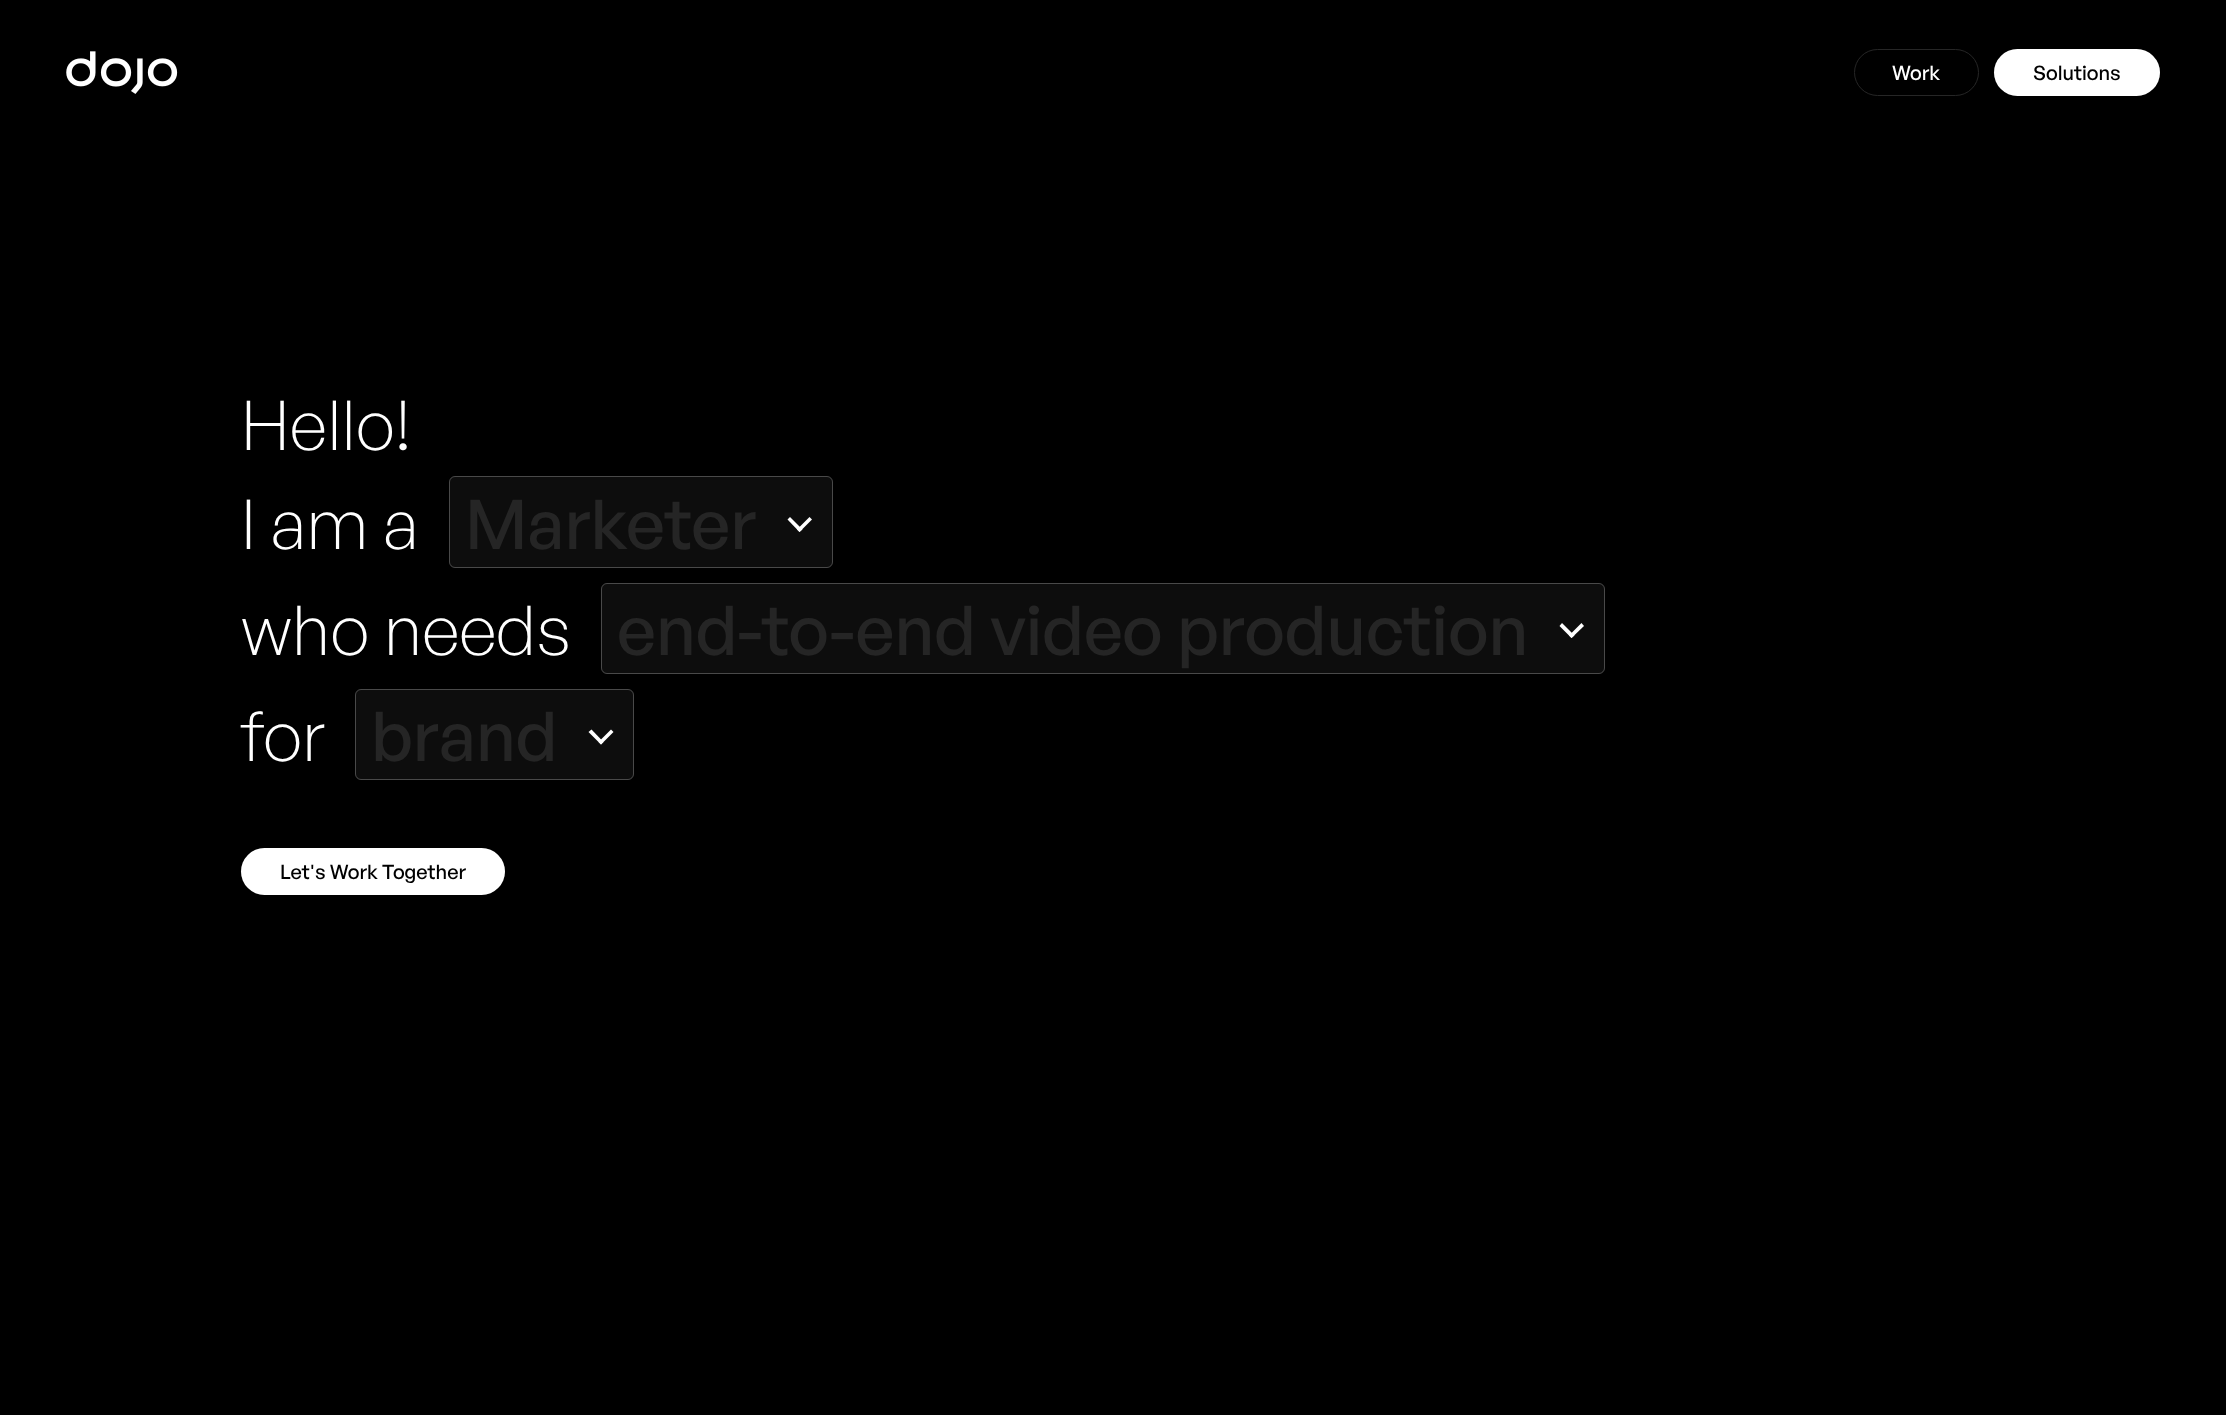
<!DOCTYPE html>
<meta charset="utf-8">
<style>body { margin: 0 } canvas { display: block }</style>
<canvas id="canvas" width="2226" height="1415"></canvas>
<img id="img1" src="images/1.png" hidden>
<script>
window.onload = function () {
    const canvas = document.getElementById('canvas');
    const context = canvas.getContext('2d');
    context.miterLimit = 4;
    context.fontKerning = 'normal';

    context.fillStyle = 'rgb(0, 0, 0)';
    context.fillRect(0, 0, 2226, 1415);
    context.drawImage(document.getElementById('img1'), 66, 51, 112, 43);
    context.beginPath();
    context.roundRect(1854.5, 49.5, 124, 46, 23);
    context.strokeStyle = 'rgb(38, 38, 38)';
    context.stroke();
    context.fillStyle = 'rgb(255, 255, 255)';
    context.beginPath();
    context.roundRect(1994, 49, 166, 47, 23.5);
    context.fill();
    context.beginPath();
    context.roundRect(1994.5, 49.5, 165, 46, 23);
    context.strokeStyle = 'rgba(255, 255, 255, 0.15)';
    context.stroke();
    context.fillStyle = 'rgb(13, 13, 13)';
    context.beginPath();
    context.roundRect(449, 476, 384, 92, 6);
    context.fill();
    context.beginPath();
    context.roundRect(449.5, 476.5, 383, 91, 5.5);
    context.strokeStyle = 'rgba(255, 255, 255, 0.25)';
    context.stroke();
    context.fillStyle = 'rgb(255, 255, 255)';
    context.beginPath();
    context.moveTo(809.5, 517);
    context.lineTo(812, 519.5);
    context.lineTo(799.5, 532);
    context.lineTo(797, 529.5);
    context.closePath();
    context.fill();
    context.beginPath();
    context.moveTo(790, 517);
    context.lineTo(802.5, 529.5);
    context.lineTo(799.5, 532);
    context.lineTo(787.5, 519.5);
    context.closePath();
    context.fill();
    context.fillStyle = 'rgb(13, 13, 13)';
    context.beginPath();
    context.roundRect(601, 583, 1004, 91, 6);
    context.fill();
    context.beginPath();
    context.roundRect(601.5, 583.5, 1003, 90, 5.5);
    context.stroke();
    context.fillStyle = 'rgb(255, 255, 255)';
    context.beginPath();
    context.moveTo(1581.5, 623);
    context.lineTo(1584, 626);
    context.lineTo(1571.5, 638);
    context.lineTo(1569, 635.5);
    context.closePath();
    context.fill();
    context.beginPath();
    context.moveTo(1562, 623);
    context.lineTo(1574.5, 635.5);
    context.lineTo(1571.5, 638);
    context.lineTo(1559.5, 626);
    context.closePath();
    context.fill();
    context.fillStyle = 'rgb(13, 13, 13)';
    context.beginPath();
    context.roundRect(355, 689, 279, 91, 6);
    context.fill();
    context.beginPath();
    context.roundRect(355.5, 689.5, 278, 90, 5.5);
    context.stroke();
    context.fillStyle = 'rgb(255, 255, 255)';
    context.beginPath();
    context.moveTo(611, 729.5);
    context.lineTo(613.5, 732);
    context.lineTo(601, 744.5);
    context.lineTo(598.5, 742);
    context.closePath();
    context.fill();
    context.beginPath();
    context.moveTo(591.5, 729.5);
    context.lineTo(603.5, 742);
    context.lineTo(601, 744.5);
    context.lineTo(588.5, 732);
    context.closePath();
    context.fill();
    context.beginPath();
    context.roundRect(241, 848, 264, 47, 23.5);
    context.fill();
    context.beginPath();
    context.roundRect(241.5, 848.5, 263, 46, 23);
    context.strokeStyle = 'rgba(255, 255, 255, 0.15)';
    context.stroke();
    context.font = '500 20px General Sans';
    context.fillText('Work', 1892, 80);
    context.fillStyle = 'rgb(0, 0, 0)';
    context.fillText('Solutions', 2033, 80);
    context.font = '300 68.75px General Sans';
    context.fillStyle = 'rgb(255, 255, 255)';
    context.fillText('Hello!', 241, 450);
    context.fillText('I am a', 241, 549);
    context.font = '500 68.75px General Sans';
    context.fillStyle = 'rgb(37, 37, 37)';
    context.fillText('Marketer', 465, 549);
    context.font = '300 68.75px General Sans';
    context.fillStyle = 'rgb(255, 255, 255)';
    context.fillText('who needs', 241, 655);
    context.font = '500 68.75px General Sans';
    context.fillStyle = 'rgb(37, 37, 37)';
    context.fillText('end-to-end video production', 617, 655);
    context.font = '300 68.75px General Sans';
    context.fillStyle = 'rgb(255, 255, 255)';
    context.fillText('for', 241, 761);
    context.font = '500 68.75px General Sans';
    context.fillStyle = 'rgb(37, 37, 37)';
    context.fillText('brand', 371, 761);
    context.font = '500 20px General Sans';
    context.fillStyle = 'rgb(0, 0, 0)';
    context.fillText('Let\'s Work Together', 280, 879);
};
</script>
